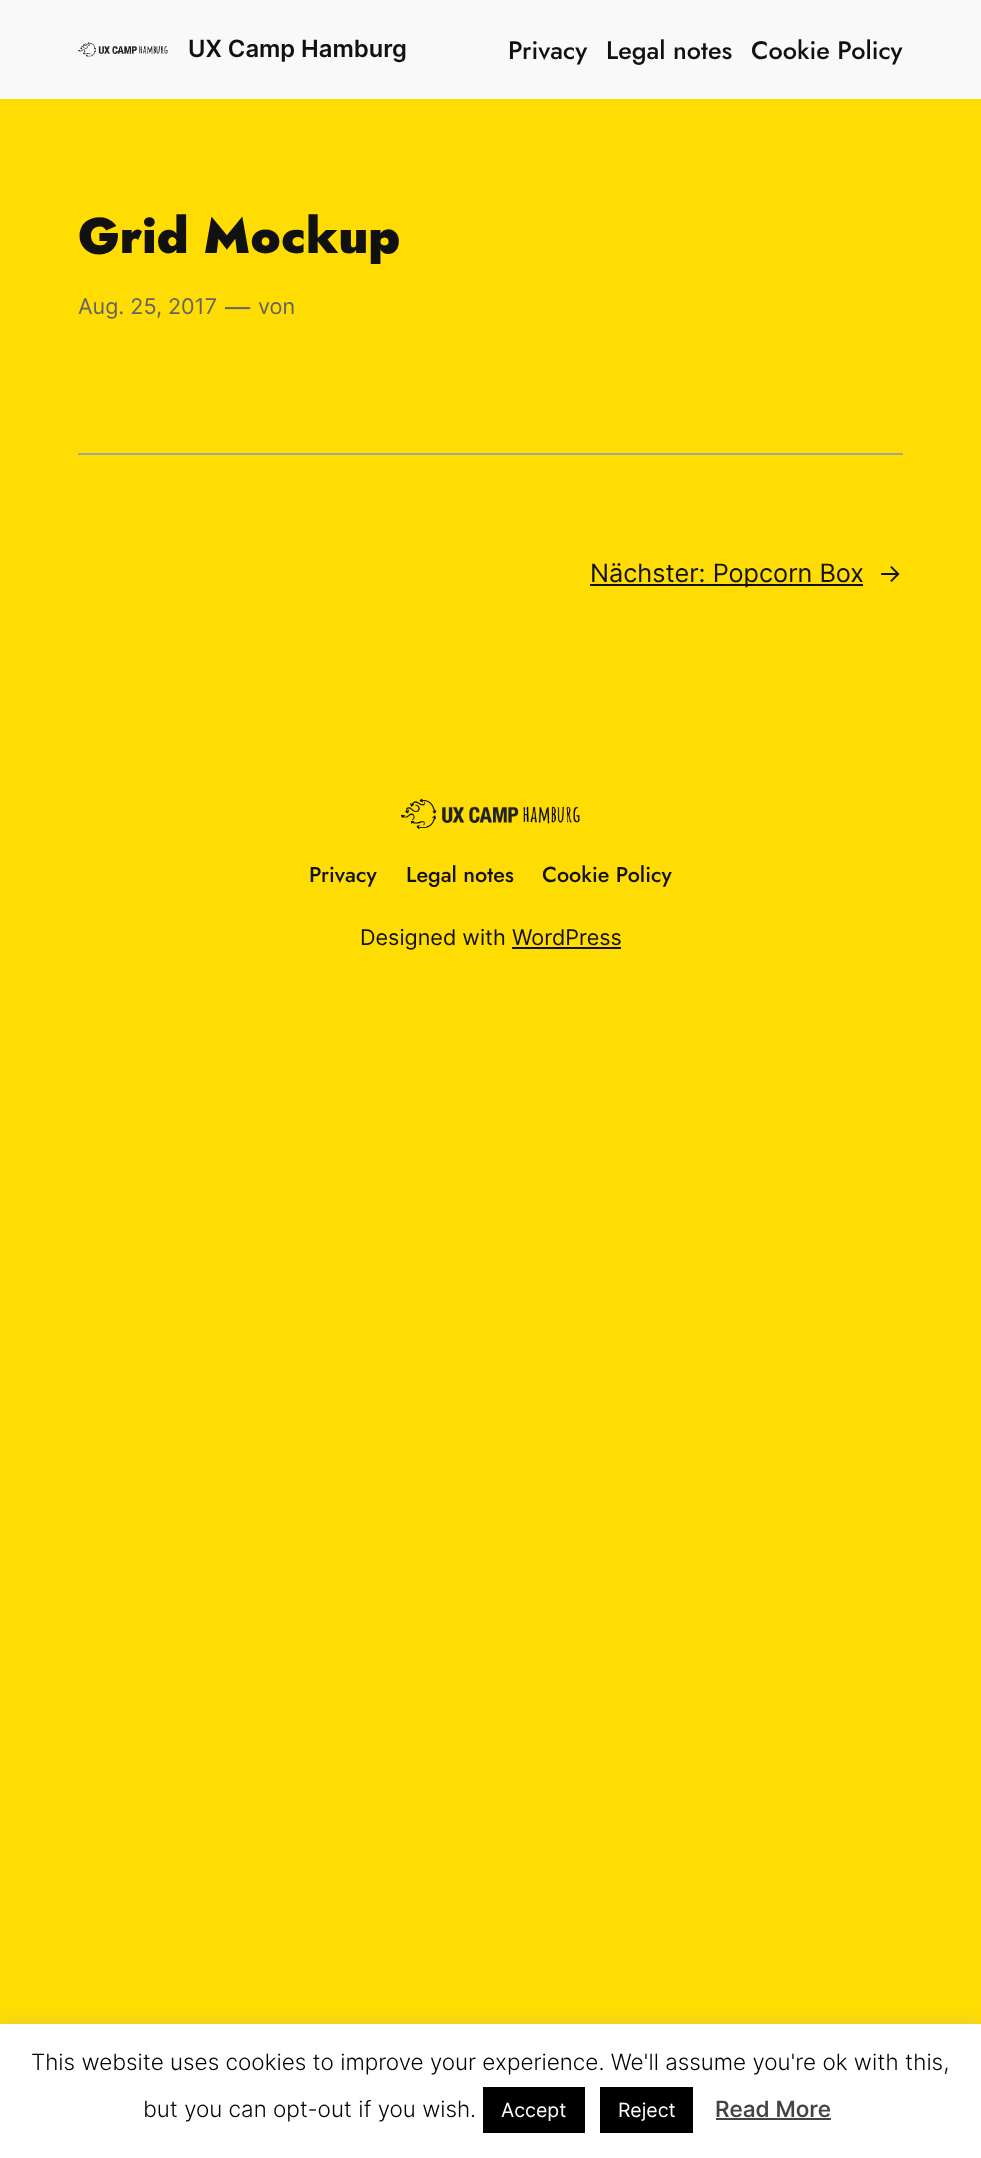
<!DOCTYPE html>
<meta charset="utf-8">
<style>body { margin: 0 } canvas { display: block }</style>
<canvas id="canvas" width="981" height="2158"></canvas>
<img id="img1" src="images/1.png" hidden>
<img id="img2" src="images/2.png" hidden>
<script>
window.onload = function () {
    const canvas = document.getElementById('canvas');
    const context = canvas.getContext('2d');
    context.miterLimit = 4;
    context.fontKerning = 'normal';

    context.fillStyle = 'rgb(255, 221, 2)';
    context.fillRect(0, 0, 981, 2158);
    context.fillStyle = 'rgb(249, 249, 249)';
    context.fillRect(0, 0, 981, 99);
    context.drawImage(document.getElementById('img1'), 78, 42, 90, 15);
    context.fillStyle = 'rgb(164, 164, 164)';
    context.fillRect(78, 453, 825, 2);
    context.fillStyle = 'rgb(17, 17, 17)';
    context.fillRect(590, 584, 273, 2);
    context.drawImage(document.getElementById('img2'), 401, 798, 179, 31);
    context.fillRect(512, 947, 109, 2);
    context.fillStyle = 'rgba(172, 171, 171, 0.3)';
    context.filter = 'blur(7.5px)';
    context.beginPath();
    context.rect(0, 2022, 981, 135);
    context.fill();
    context.filter = 'none';
    context.fillStyle = 'rgb(255, 255, 255)';
    context.fillRect(0, 2024, 981, 134);
    context.fillStyle = 'rgb(0, 0, 0)';
    context.fillRect(483, 2087, 102, 46);
    context.fillRect(600, 2087, 93, 46);
    context.fillStyle = 'rgb(68, 68, 68)';
    context.fillRect(716, 2118, 115, 2);
    context.font = '600 23.75px Inter';
    context.fillStyle = 'rgb(17, 17, 17)';
    context.fillText('UX Camp Hamburg', 188, 57);
    context.font = '500 25.25px Jost';
    context.fillText('Privacy', 508, 59);
    context.fillText('Legal notes', 606, 59);
    context.fillText('Cookie Policy', 751, 59);
    context.font = '900 49.75px Jost';
    context.fillText('Grid Mockup', 78, 253);
    context.font = '21.6px Inter';
    context.fillStyle = 'rgb(99, 99, 99)';
    context.fillText('Aug. 25, 2017', 78, 314);
    context.font = '25.25px Inter';
    context.fillText('—', 225, 316);
    context.font = '21.6px Inter';
    context.fillText('von', 258, 314);
    context.font = '25.25px Inter';
    context.fillStyle = 'rgb(17, 17, 17)';
    context.fillText('Nächster: Popcorn Box', 590, 582);
    context.fillText('→', 878, 582);
    context.font = '500 21.6px Jost';
    context.fillText('Privacy', 309, 882);
    context.fillText('Legal notes', 406, 882);
    context.fillText('Cookie Policy', 542, 882);
    context.font = '21.6px Inter';
    context.fillText('Designed with WordPress', 360, 945);
    context.font = '300 22.5px Inter';
    context.fillStyle = 'rgb(0, 0, 0)';
    context.fillText('This website uses cookies to improve your experience. We\'ll assume you\'re ok with this,', 31, 2070);
    context.fillText('but you can opt-out if you wish.', 143, 2117);
    context.font = '19.5px Inter';
    context.fillStyle = 'rgb(255, 255, 255)';
    context.fillText('Accept', 501, 2117);
    context.fillText('Reject', 618, 2117);
    context.font = '500 22.5px Inter';
    context.fillStyle = 'rgb(68, 68, 68)';
    context.fillText('Read More', 715, 2117);
};
</script>
